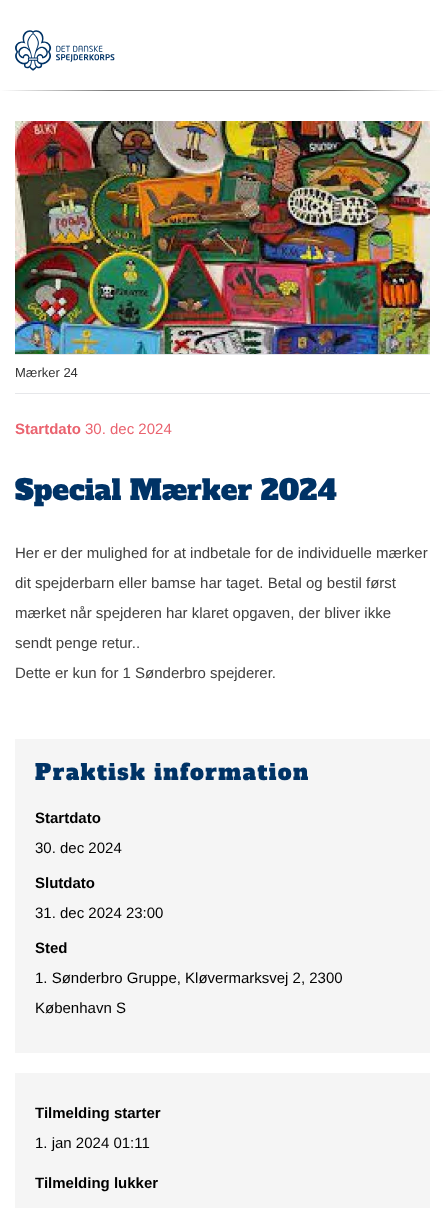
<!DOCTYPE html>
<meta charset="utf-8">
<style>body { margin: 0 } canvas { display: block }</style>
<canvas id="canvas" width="445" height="1208"></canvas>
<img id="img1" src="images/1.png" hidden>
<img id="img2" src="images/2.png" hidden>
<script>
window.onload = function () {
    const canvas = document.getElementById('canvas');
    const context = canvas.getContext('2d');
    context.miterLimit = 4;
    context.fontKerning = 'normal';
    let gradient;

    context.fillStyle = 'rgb(255, 255, 255)';
    context.fillRect(0, 0, 445, 1208);
    context.drawImage(document.getElementById('img1'), 15, 30, 100, 41);
    gradient = context.createLinearGradient(445, 91, 0, 90);
    gradient.addColorStop(0, 'rgb(255, 255, 255)');
    gradient.addColorStop(0.25, 'rgb(124, 124, 124)');
    gradient.addColorStop(0.75, 'rgb(124, 124, 124)');
    gradient.addColorStop(1, 'rgb(255, 255, 255)');
    context.fillStyle = gradient;
    context.fillRect(0, 90, 445, 1);
    context.fillStyle = 'rgb(230, 231, 234)';
    context.fillRect(15, 354, 415, 1);
    context.drawImage(document.getElementById('img2'), 15, 121, 415, 233);
    context.fillRect(15, 393, 415, 1);
    context.fillStyle = 'rgb(245, 245, 245)';
    context.fillRect(15, 739, 415, 314);
    context.fillRect(15, 1073, 415, 135);
    context.font = '13px Liberation Sans';
    context.fillStyle = 'rgb(51, 51, 51)';
    context.fillText('Mærker 24', 15, 377);
    context.font = 'bold 15px Liberation Sans';
    context.fillStyle = 'rgb(234, 99, 111)';
    context.fillText('Startdato', 15, 434);
    context.font = '15px Liberation Sans';
    context.fillText('30. dec 2024', 85, 434);
    context.font = '28px Alfa Slab One';
    context.fillStyle = 'rgb(0, 51, 102)';
    context.fillText('Special Mærker 2024', 15, 500);
    context.font = '15px Liberation Sans';
    context.fillStyle = 'rgb(64, 64, 64)';
    context.fillText('Her er der mulighed for at indbetale for de individuelle mærker', 15, 558);
    context.fillText('dit spejderbarn eller bamse har taget. Betal og bestil først', 15, 588);
    context.fillText('mærket når spejderen har klaret opgaven, der bliver ikke', 15, 618);
    context.fillText('sendt penge retur..', 15, 648);
    context.fillText('Dette er kun for 1 Sønderbro spejderer.', 15, 678);
    context.letterSpacing = '1.4px';
    context.font = '22px Alfa Slab One';
    context.fillStyle = 'rgb(0, 51, 102)';
    context.fillText('Praktisk information', 35, 780);
    context.letterSpacing = '0px';
    context.font = 'bold 15px Liberation Sans';
    context.fillStyle = 'rgb(0, 0, 0)';
    context.fillText('Startdato', 35, 823);
    context.font = '15px Liberation Sans';
    context.fillText('30. dec 2024', 35, 853);
    context.font = 'bold 15px Liberation Sans';
    context.fillText('Slutdato', 35, 888);
    context.font = '15px Liberation Sans';
    context.fillText('31. dec 2024 23:00', 35, 918);
    context.font = 'bold 15px Liberation Sans';
    context.fillText('Sted', 35, 953);
    context.font = '15px Liberation Sans';
    context.fillText('1. Sønderbro Gruppe, Kløvermarksvej 2, 2300', 35, 983);
    context.fillText('København S', 35, 1013);
    context.font = 'bold 15px Liberation Sans';
    context.fillText('Tilmelding starter', 35, 1118);
    context.font = '15px Liberation Sans';
    context.fillText('1. jan 2024 01:11', 35, 1148);
    context.font = 'bold 15px Liberation Sans';
    context.fillText('Tilmelding lukker', 35, 1188);
};
</script>
